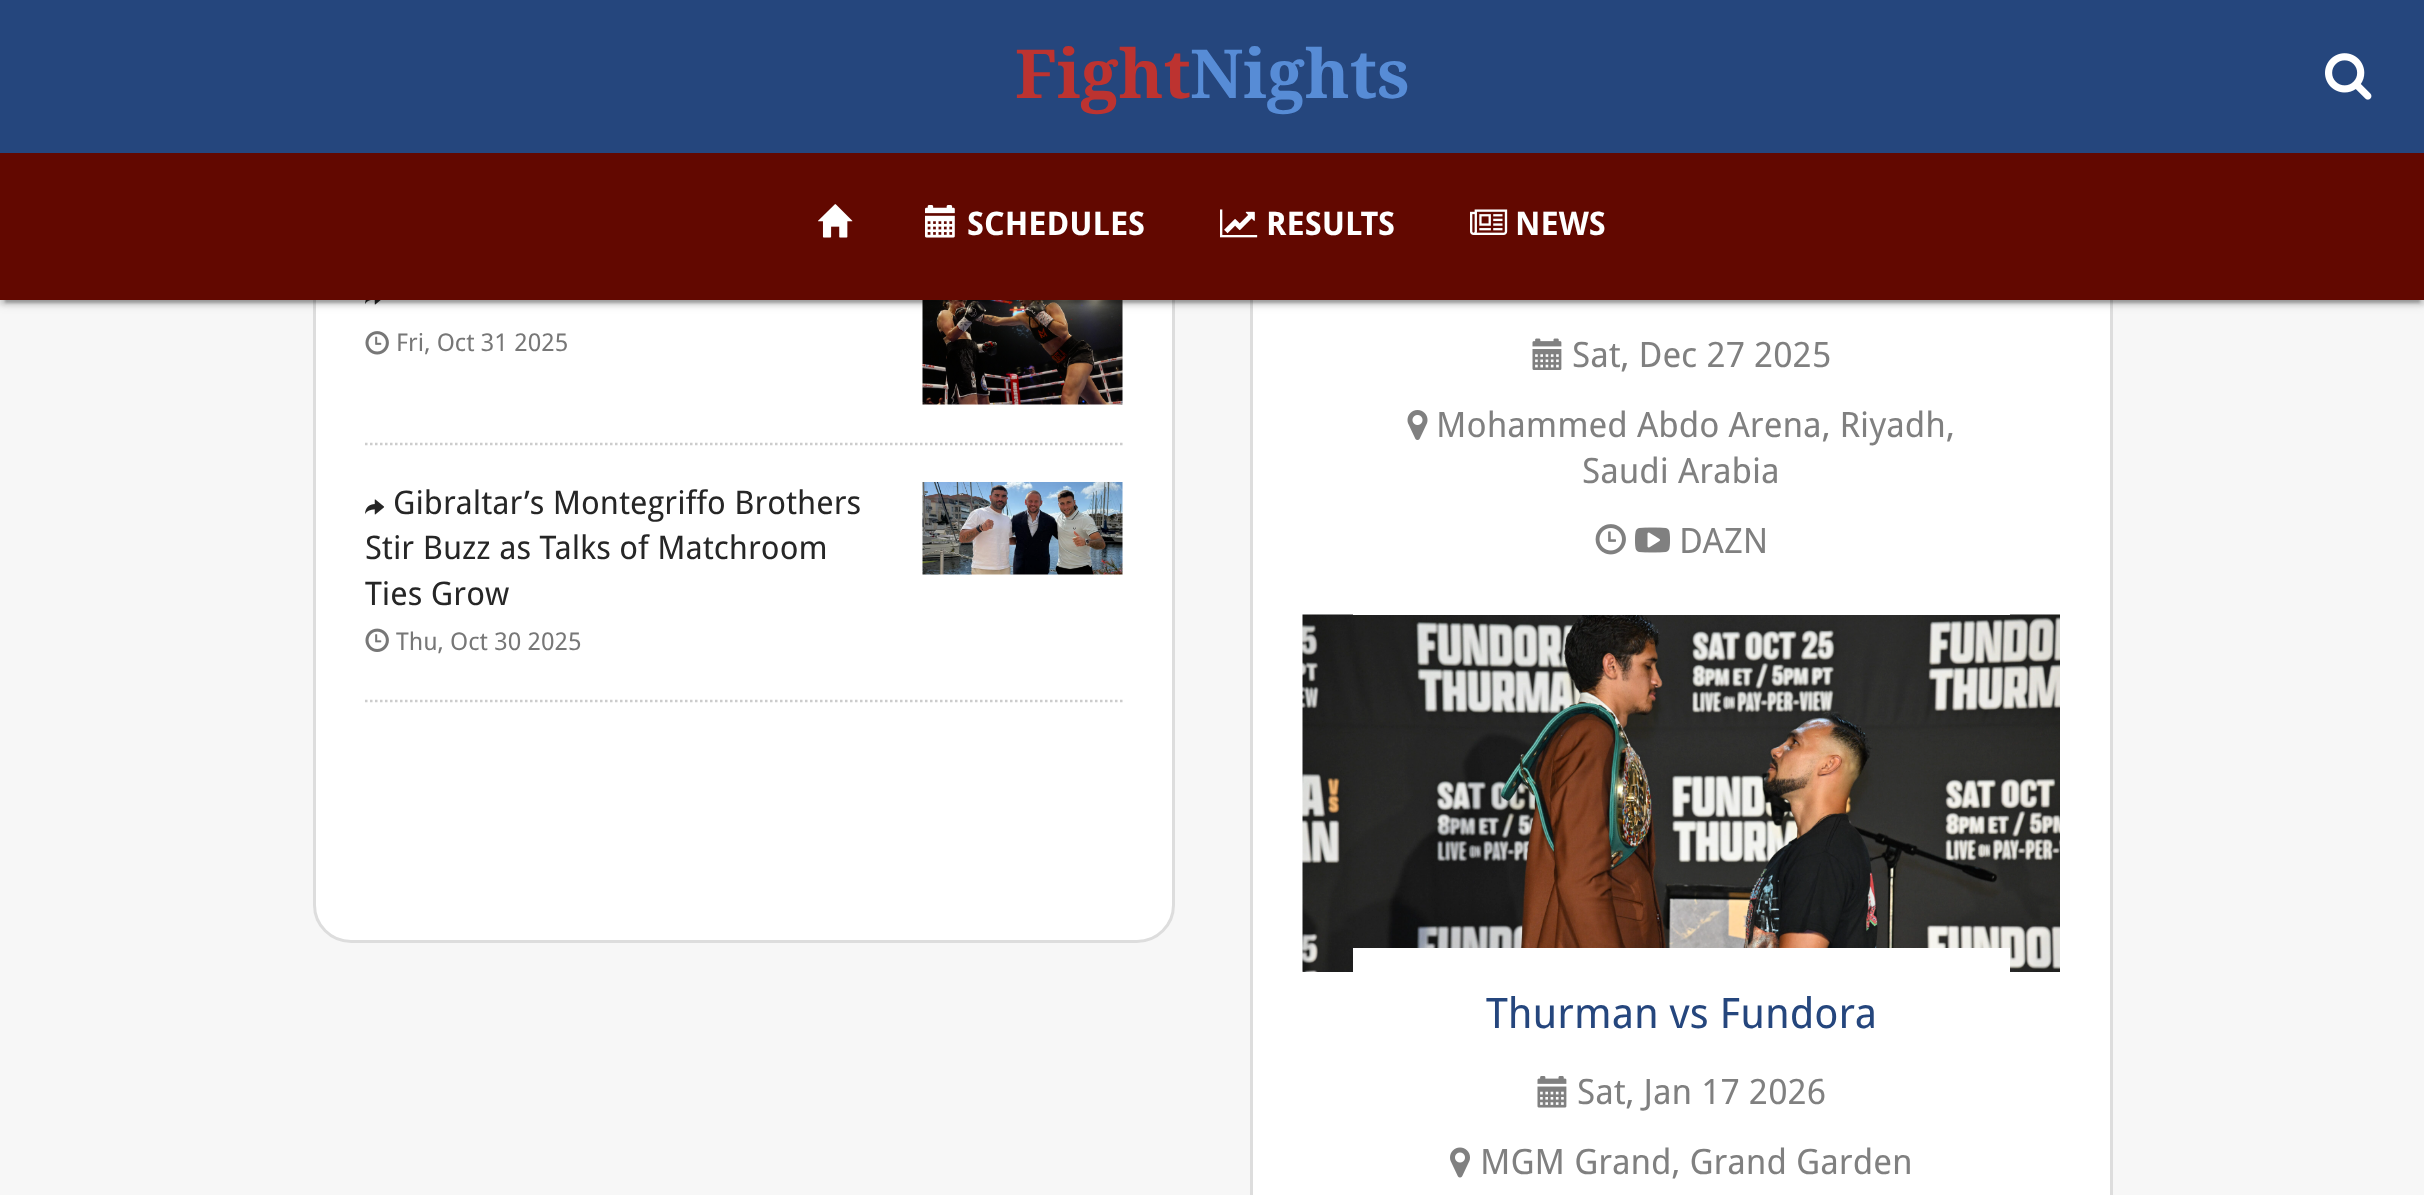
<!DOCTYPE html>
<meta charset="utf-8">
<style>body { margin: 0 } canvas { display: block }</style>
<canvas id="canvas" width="2424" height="1195"></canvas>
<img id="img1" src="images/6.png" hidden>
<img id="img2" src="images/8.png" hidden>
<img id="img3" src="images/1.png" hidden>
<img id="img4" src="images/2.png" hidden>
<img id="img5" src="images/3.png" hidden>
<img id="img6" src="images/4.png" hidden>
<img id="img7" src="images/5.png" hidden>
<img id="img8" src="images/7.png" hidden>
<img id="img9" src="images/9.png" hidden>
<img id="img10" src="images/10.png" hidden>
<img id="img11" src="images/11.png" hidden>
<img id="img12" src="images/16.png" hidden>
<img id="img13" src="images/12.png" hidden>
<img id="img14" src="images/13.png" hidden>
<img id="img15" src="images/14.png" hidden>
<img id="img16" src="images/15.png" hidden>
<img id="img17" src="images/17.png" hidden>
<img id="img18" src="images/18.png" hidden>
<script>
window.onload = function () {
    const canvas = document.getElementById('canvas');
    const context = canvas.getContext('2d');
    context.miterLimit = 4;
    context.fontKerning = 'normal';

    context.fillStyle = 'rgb(247, 247, 247)';
    context.fillRect(0, 0, 2424, 1195);
    context.fillStyle = 'rgb(255, 255, 255)';
    context.beginPath();
    context.roundRect(314.5, -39.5, 859, 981, 36.5);
    context.fill();
    context.strokeStyle = 'rgb(221, 221, 221)';
    context.lineWidth = 3;
    context.stroke();
    context.drawImage(document.getElementById('img1'), 365, 300, 16, 5);
    context.drawImage(document.getElementById('img2'), 922, 300, 201, 105);
    context.fillRect(1253, 300, 857, 895);
    context.strokeRect(1251.5, -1.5, 860, 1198);
    context.fillStyle = 'rgba(0, 0, 0, 0.12)';
    context.filter = 'blur(6px)';
    context.beginPath();
    context.rect(0, 3, 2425, 300);
    context.fill();
    context.filter = 'none';
    context.fillStyle = 'rgba(0, 0, 0, 0.2)';
    context.filter = 'blur(1px)';
    context.beginPath();
    context.rect(5, 13, 2415, 290);
    context.fill();
    context.filter = 'none';
    context.fillStyle = 'rgba(0, 0, 0, 0.14)';
    context.filter = 'blur(2.5px)';
    context.beginPath();
    context.rect(0, 5, 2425, 300);
    context.fill();
    context.filter = 'none';
    context.fillStyle = 'rgb(98, 8, 0)';
    context.fillRect(0, 153, 2424, 147);
    context.fillStyle = 'rgb(37, 70, 125)';
    context.fillRect(0, 0, 2424, 153);
    context.drawImage(document.getElementById('img3'), 2325, 53, 47, 47);
    context.drawImage(document.getElementById('img4'), 818, 204, 35, 34);
    context.drawImage(document.getElementById('img5'), 925, 205, 30, 33);
    context.drawImage(document.getElementById('img6'), 1220, 209, 38, 29);
    context.drawImage(document.getElementById('img7'), 1470, 209, 38, 26);
    context.beginPath();
    context.moveTo(365, 444);
    context.lineTo(1122.5, 444);
    context.strokeStyle = 'rgb(204, 204, 204)';
    context.lineWidth = 2.5;
    context.setLineDash([2.5, 2.5]);
    context.stroke();
    context.drawImage(document.getElementById('img8'), 365, 331, 24, 24);
    context.beginPath();
    context.moveTo(365, 701);
    context.lineTo(1122.5, 701);
    context.stroke();
    context.drawImage(document.getElementById('img9'), 365, 499, 20, 16);
    context.drawImage(document.getElementById('img10'), 365, 628, 24, 24);
    context.drawImage(document.getElementById('img11'), 922, 482, 201, 93);
    context.drawImage(document.getElementById('img12'), 1302, 614, 758, 358);
    context.fillStyle = 'rgb(255, 255, 255)';
    context.fillRect(1353, 614, 657, 1);
    context.drawImage(document.getElementById('img13'), 1532, 338, 30, 32);
    context.drawImage(document.getElementById('img14'), 1407, 410, 21, 30);
    context.drawImage(document.getElementById('img15'), 1595, 524, 31, 31);
    context.drawImage(document.getElementById('img16'), 1635, 527, 35, 26);
    context.fillRect(1353, 948, 657, 24);
    context.drawImage(document.getElementById('img17'), 1537, 1076, 30, 32);
    context.drawImage(document.getElementById('img18'), 1450, 1147, 20, 31);
    context.font = 'bold 67.5px Droid Serif';
    context.fillStyle = 'rgb(189, 51, 48)';
    context.fillText('Fight', 1015, 98);
    context.fillStyle = 'rgb(87, 140, 214)';
    context.fillText('Nights', 1190, 98);
    context.font = 'bold 32.5px Droid Sans';
    context.fillStyle = 'rgb(255, 255, 255)';
    context.fillText('SCHEDULES', 967, 235);
    context.fillText('RESULTS', 1266, 235);
    context.fillText('NEWS', 1515, 235);
    context.font = '24.5px Droid Sans';
    context.fillStyle = 'rgb(119, 119, 119)';
    context.fillText('Fri, Oct 31 2025', 396, 351);
    context.font = '32.5px Droid Sans';
    context.fillStyle = 'rgb(38, 38, 38)';
    context.fillText('Gibraltar’s Montegriffo Brothers', 393, 514);
    context.fillText('Stir Buzz as Talks of Matchroom', 365, 559);
    context.fillText('Ties Grow', 365, 605);
    context.font = '24.5px Droid Sans';
    context.fillStyle = 'rgb(119, 119, 119)';
    context.fillText('Thu, Oct 30 2025', 396, 650);
    context.font = '35px Droid Sans';
    context.fillStyle = 'rgb(128, 128, 128)';
    context.fillText('Sat, Dec 27 2025', 1572, 367);
    context.fillText('Mohammed Abdo Arena, Riyadh,', 1436, 437);
    context.fillText('Saudi Arabia', 1582, 483);
    context.fillText('DAZN', 1679, 553);
    context.font = '42px Droid Sans';
    context.fillStyle = 'rgb(37, 70, 125)';
    context.fillText('Thurman vs Fundora', 1486, 1028);
    context.font = '35px Droid Sans';
    context.fillStyle = 'rgb(128, 128, 128)';
    context.fillText('Sat, Jan 17 2026', 1577, 1104);
    context.fillText('MGM Grand, Grand Garden', 1480, 1174);
};
</script>
